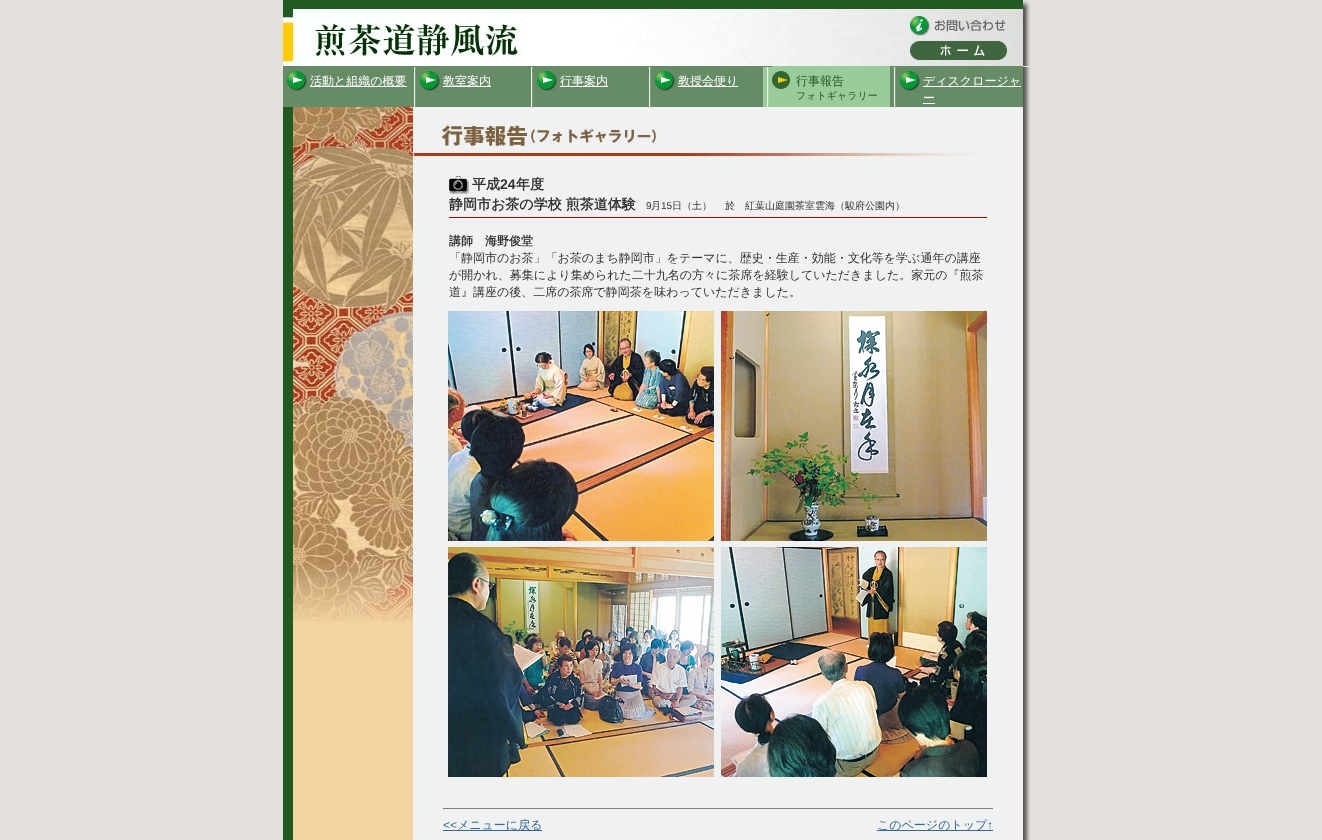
<!DOCTYPE html>
<meta charset="utf-8">
<style>body { margin: 0 } canvas { display: block }</style>
<canvas id="canvas" width="1322" height="840"></canvas>
<img id="img1" src="images/1.png" hidden>
<img id="img2" src="images/2.png" hidden>
<img id="img3" src="images/3.png" hidden>
<img id="img4" src="images/4.png" hidden>
<img id="img5" src="images/5.png" hidden>
<img id="img6" src="images/6.png" hidden>
<img id="img7" src="images/7.png" hidden>
<img id="img8" src="images/8.png" hidden>
<img id="img9" src="images/9.png" hidden>
<img id="img10" src="images/10.png" hidden>
<img id="img11" src="images/11.png" hidden>
<img id="img12" src="images/12.png" hidden>
<img id="img13" src="images/13.png" hidden>
<img id="img14" src="images/14.png" hidden>
<img id="img15" src="images/15.png" hidden>
<img id="img16" src="images/16.png" hidden>
<script>
window.onload = function () {
    const canvas = document.getElementById('canvas');
    const context = canvas.getContext('2d');
    context.miterLimit = 4;
    context.fontKerning = 'normal';

    context.fillStyle = 'rgb(228, 225, 220)';
    context.fillRect(0, 0, 1322, 840);
    context.drawImage(document.getElementById('img1'), 283, 0, 627, 66);
    context.drawImage(document.getElementById('img2'), 910, 0, 113, 66);
    context.drawImage(document.getElementById('img3'), 1023, 0, 8, 66);
    context.fillStyle = 'rgb(102, 140, 102)';
    context.fillRect(283, 66, 480, 41);
    context.drawImage(document.getElementById('img4'), 287, 71, 20, 20);
    context.fillRect(763, 66, 9, 1);
    context.drawImage(document.getElementById('img5'), 763, 67, 9, 40);
    context.fillStyle = 'rgb(153, 204, 153)';
    context.fillRect(772, 66, 118, 41);
    context.drawImage(document.getElementById('img6'), 772, 71, 18, 18);
    context.fillStyle = 'rgb(102, 140, 102)';
    context.fillRect(890, 66, 133, 41);
    context.drawImage(document.getElementById('img7'), 894, 67, 2, 40);
    context.fillStyle = 'rgb(255, 255, 255)';
    context.fillRect(310, 86, 97, 1);
    context.drawImage(document.getElementById('img7'), 414, 67, 2, 40);
    context.drawImage(document.getElementById('img4'), 420, 71, 20, 20);
    context.fillRect(443, 86, 48, 1);
    context.drawImage(document.getElementById('img7'), 531, 67, 2, 40);
    context.drawImage(document.getElementById('img4'), 537, 71, 20, 20);
    context.fillRect(560, 86, 48, 1);
    context.drawImage(document.getElementById('img7'), 649, 67, 2, 40);
    context.drawImage(document.getElementById('img4'), 655, 71, 20, 20);
    context.fillRect(678, 86, 60, 1);
    context.drawImage(document.getElementById('img4'), 900, 71, 20, 20);
    context.fillRect(923, 86, 98, 1);
    context.fillRect(923, 103, 12, 1);
    context.drawImage(document.getElementById('img8'), 1023, 67, 8, 40);
    context.fillStyle = 'rgb(32, 90, 32)';
    context.fillRect(283, 107, 10, 733);
    context.fillStyle = 'rgb(243, 211, 162)';
    context.fillRect(293, 622, 120, 218);
    context.drawImage(document.getElementById('img9'), 293, 107, 120, 515);
    context.fillStyle = 'rgb(240, 242, 241)';
    context.fillRect(413, 107, 610, 733);
    context.drawImage(document.getElementById('img10'), 413, 123, 568, 40);
    context.drawImage(document.getElementById('img11'), 449, 176, 20, 18);
    context.fillStyle = 'rgb(153, 0, 0)';
    context.fillRect(449, 217, 538, 1);
    context.drawImage(document.getElementById('img12'), 448, 311, 266, 230);
    context.drawImage(document.getElementById('img13'), 721, 311, 266, 230);
    context.drawImage(document.getElementById('img14'), 448, 547, 266, 230);
    context.drawImage(document.getElementById('img15'), 721, 547, 266, 230);
    context.fillStyle = 'rgb(128, 128, 128)';
    context.fillRect(443, 808, 550, 1);
    context.fillStyle = 'rgb(51, 102, 153)';
    context.fillRect(443, 830, 99, 1);
    context.fillRect(877, 830, 116, 1);
    context.drawImage(document.getElementById('img16'), 1023, 107, 8, 733);
    context.font = '500 12px WenQuanYi Zen Hei';
    context.fillStyle = 'rgb(255, 255, 255)';
    context.fillText('活動と組織の概要', 310, 85);
    context.fillText('教室案内', 443, 85);
    context.fillText('行事案内', 560, 85);
    context.fillText('教授会便り', 678, 85);
    context.fillStyle = 'rgb(33, 90, 35)';
    context.fillText('行事報告', 796, 85);
    context.font = '500 10px WenQuanYi Zen Hei';
    context.fillText('フォトギャラリー', 796, 99);
    context.font = '500 12px WenQuanYi Zen Hei';
    context.fillStyle = 'rgb(255, 255, 255)';
    context.fillText('ディスクロージャ', 923, 85);
    context.fillText('ー', 923, 102);
    context.font = 'bold 14px WenQuanYi Zen Hei';
    context.fillStyle = 'rgb(51, 51, 51)';
    context.fillText('平成', 472, 189);
    context.font = 'bold 14px Liberation Sans';
    context.fillText('24', 500, 189);
    context.font = 'bold 14px WenQuanYi Zen Hei';
    context.fillText('年度', 516, 189);
    context.fillText('静岡市お茶の学校 煎茶道体験', 449, 209);
    context.font = '10px Liberation Sans';
    context.fillText('9', 646, 209);
    context.font = '500 10px WenQuanYi Zen Hei';
    context.fillText('月', 651, 209);
    context.font = '10px Liberation Sans';
    context.fillText('15', 661, 209);
    context.font = '500 10px WenQuanYi Zen Hei';
    context.fillText('日（土）　 於　紅葉山庭園茶室雲海（駿府公園内）', 672, 209);
    context.font = 'bold 12px WenQuanYi Zen Hei';
    context.fillText('講師　海野俊堂', 449, 245);
    context.font = '500 12px WenQuanYi Zen Hei';
    context.fillText('「静岡市のお茶」「お茶のまち静岡市」をテーマに、歴史・生産・効能・文化等を学ぶ通年の講座', 449, 262);
    context.fillText('が開かれ、募集により集められた二十九名の方々に茶席を経験していただきました。家元の『煎茶', 449, 279);
    context.fillText('道』講座の後、二席の茶席で静岡茶を味わっていただきました。', 449, 296);
    context.font = '12px Liberation Sans';
    context.fillStyle = 'rgb(51, 102, 153)';
    context.fillText('<<', 443, 829);
    context.font = '500 12px WenQuanYi Zen Hei';
    context.fillText('メニューに戻る', 457, 829);
    context.fillText('このページのトップ', 877, 829);
    context.font = '12px Liberation Sans';
    context.fillText('↑', 987, 829);
};
</script>
